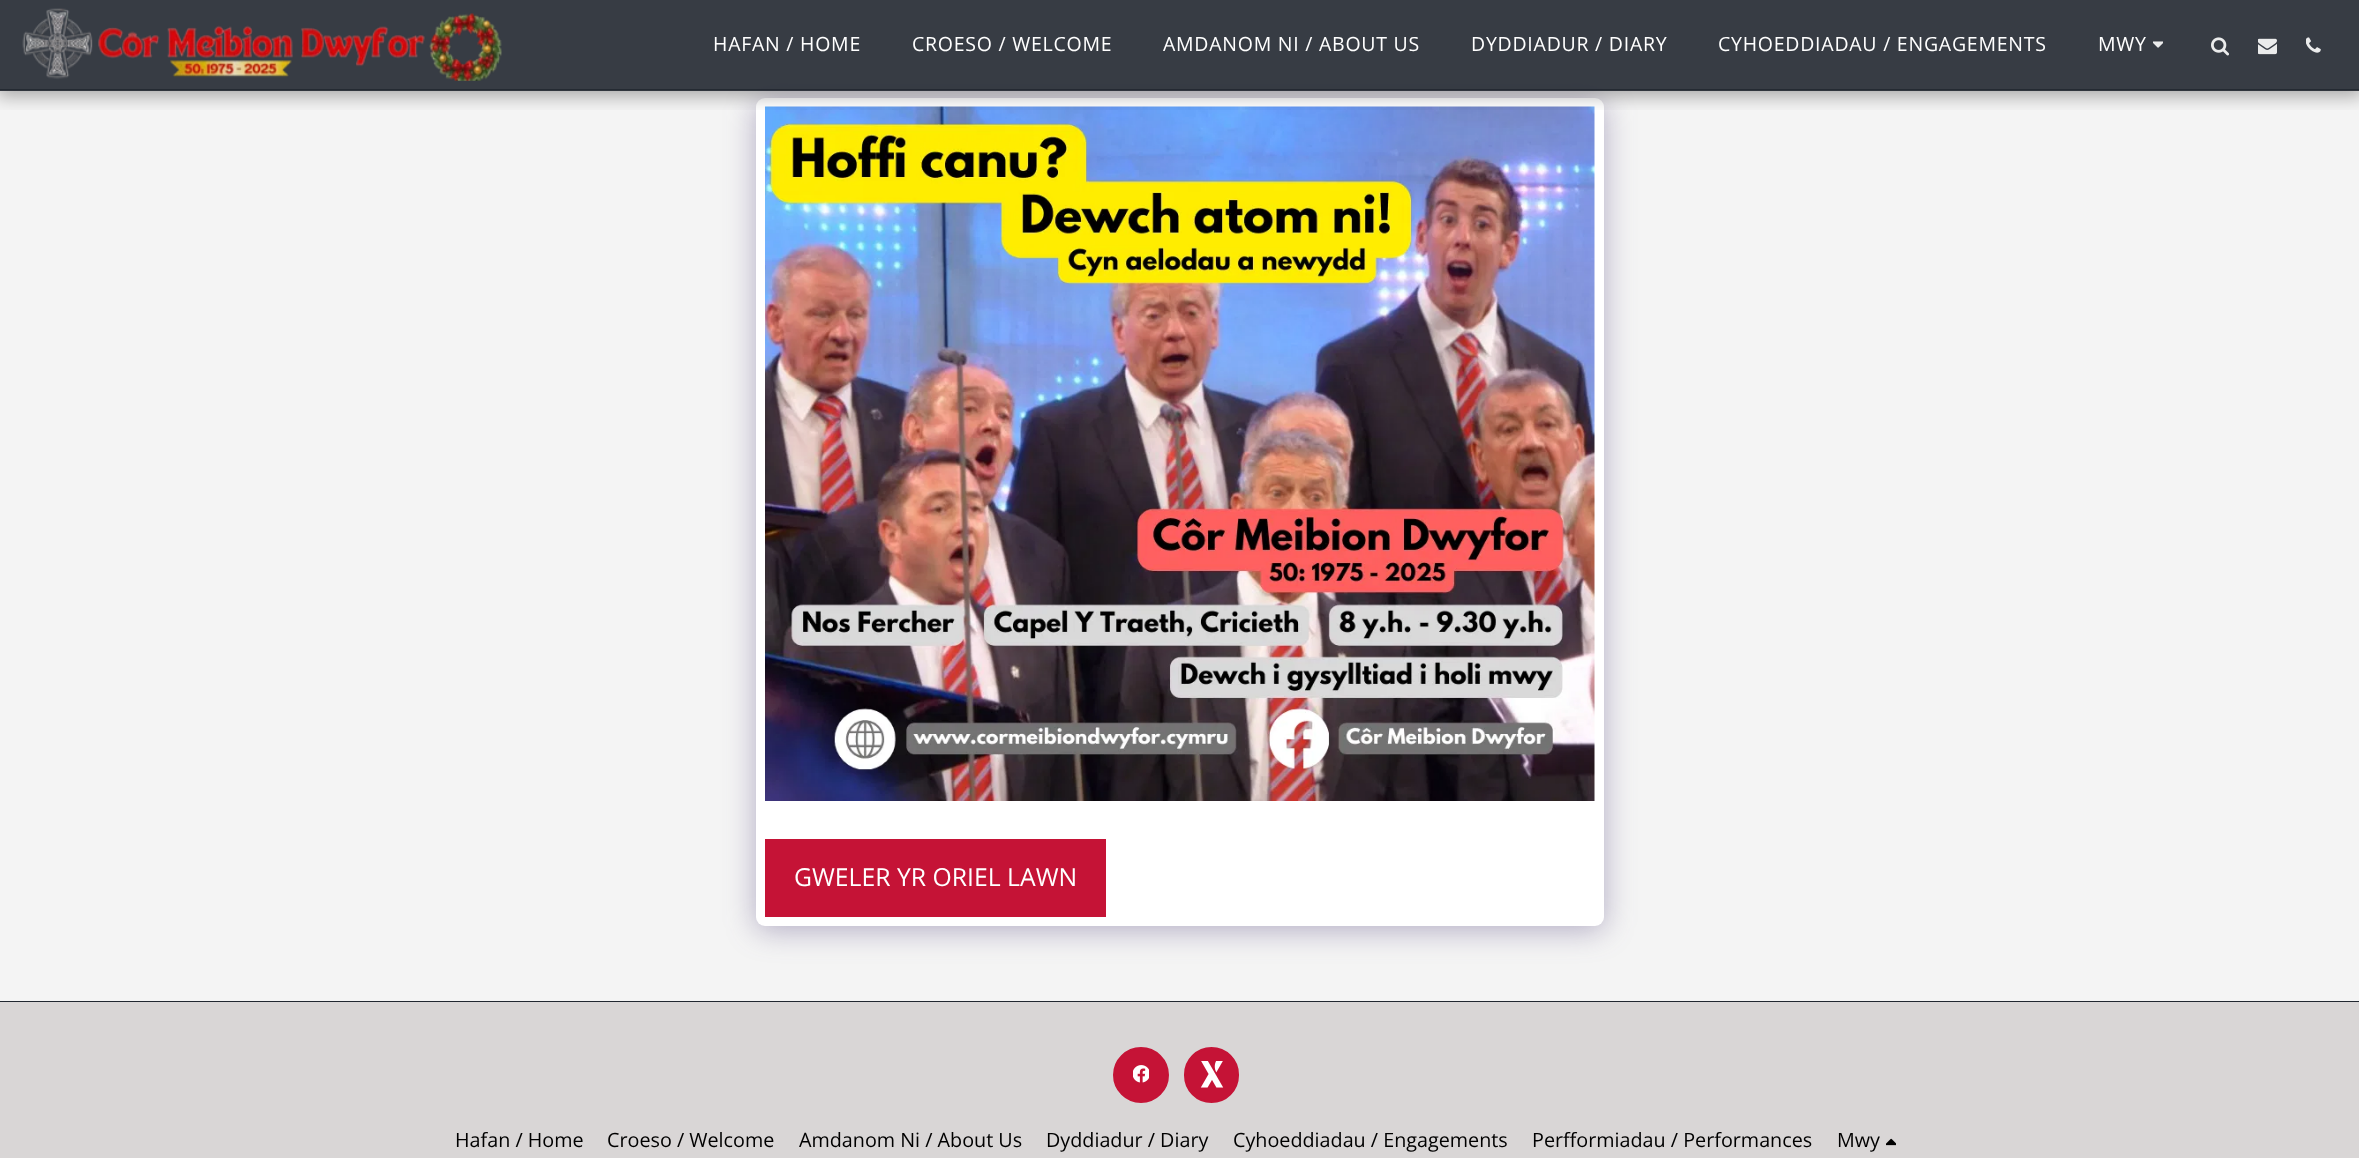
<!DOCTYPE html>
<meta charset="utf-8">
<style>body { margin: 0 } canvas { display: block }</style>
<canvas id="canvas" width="2359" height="1158"></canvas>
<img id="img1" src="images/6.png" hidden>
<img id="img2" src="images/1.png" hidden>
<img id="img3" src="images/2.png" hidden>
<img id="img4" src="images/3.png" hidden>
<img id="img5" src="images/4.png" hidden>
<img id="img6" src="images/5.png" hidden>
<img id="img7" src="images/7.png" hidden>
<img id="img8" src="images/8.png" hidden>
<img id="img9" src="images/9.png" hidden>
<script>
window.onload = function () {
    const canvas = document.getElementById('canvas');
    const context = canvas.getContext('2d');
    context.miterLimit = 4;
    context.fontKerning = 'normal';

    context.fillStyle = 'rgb(244, 244, 244)';
    context.fillRect(0, 0, 2359, 1158);
    context.fillStyle = 'rgba(77, 63, 122, 0.4)';
    context.filter = 'blur(15px)';
    context.beginPath();
    context.roundRect(756, 102, 848, 828, 9);
    context.fill();
    context.filter = 'none';
    context.fillStyle = 'rgb(255, 255, 255)';
    context.beginPath();
    context.roundRect(756, 98, 848, 828, 9);
    context.fill();
    context.drawImage(document.getElementById('img1'), 765, 106, 830, 695);
    context.save();
    context.beginPath();
    context.rect(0, 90, 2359, 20);
    context.clip();
    context.fillStyle = 'rgba(0, 0, 0, 0.32)';
    context.filter = 'blur(9px)';
    context.beginPath();
    context.rect(-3, 0, 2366, 96);
    context.fill();
    context.filter = 'none';
    context.restore();
    context.fillStyle = 'rgba(34, 40, 49, 0.9)';
    context.fillRect(0, 0, 2359, 90);
    context.fillRect(0, 89, 2359, 2);
    context.drawImage(document.getElementById('img2'), 22, 8, 480, 73);
    context.drawImage(document.getElementById('img3'), 2153, 41, 10, 7);
    context.drawImage(document.getElementById('img4'), 2211, 37, 18, 19);
    context.drawImage(document.getElementById('img5'), 2258, 38, 19, 17);
    context.drawImage(document.getElementById('img6'), 2306, 37, 15, 16);
    context.fillStyle = 'rgb(197, 19, 54)';
    context.fillRect(765, 839, 341, 78);
    context.fillStyle = 'rgb(34, 40, 49)';
    context.fillRect(0, 1001, 2359, 1);
    context.fillStyle = 'rgb(217, 214, 214)';
    context.fillRect(0, 1002, 2359, 156);
    context.fillStyle = 'rgb(197, 19, 54)';
    context.beginPath();
    context.arc(1141, 1075, 27, 0, 2 * Math.PI);
    context.fill();
    context.strokeStyle = 'rgb(197, 19, 54)';
    context.lineWidth = 2;
    context.stroke();
    context.drawImage(document.getElementById('img7'), 1133, 1065, 16, 18);
    context.beginPath();
    context.roundRect(1185, 1048, 53, 54, 26.5);
    context.fill();
    context.stroke();
    context.drawImage(document.getElementById('img8'), 1200, 1061, 24, 27);
    context.drawImage(document.getElementById('img9'), 1886, 1138, 10, 8);
    context.letterSpacing = '0.75px';
    context.font = '19.5px Open Sans';
    context.fillStyle = 'rgb(255, 255, 255)';
    context.fillText('HAFAN / HOME', 713, 51);
    context.fillText('CROESO / WELCOME', 912, 51);
    context.fillText('AMDANOM NI / ABOUT US', 1163, 51);
    context.fillText('DYDDIADUR / DIARY', 1471, 51);
    context.fillText('CYHOEDDIADAU / ENGAGEMENTS', 1718, 51);
    context.fillText('MWY', 2098, 51);
    context.letterSpacing = '0px';
    context.font = '24.75px Open Sans';
    context.fillText('GWELER YR ORIEL LAWN', 794, 886);
    context.font = '19.75px Open Sans';
    context.fillStyle = 'rgb(0, 0, 0)';
    context.fillText('Hafan / Home', 455, 1147);
    context.fillText('Croeso / Welcome', 607, 1147);
    context.fillText('Amdanom Ni / About Us', 799, 1147);
    context.fillText('Dyddiadur / Diary', 1046, 1147);
    context.fillText('Cyhoeddiadau / Engagements', 1233, 1147);
    context.fillText('Perfformiadau / Performances', 1532, 1147);
    context.fillText('Mwy', 1837, 1147);
};
</script>
